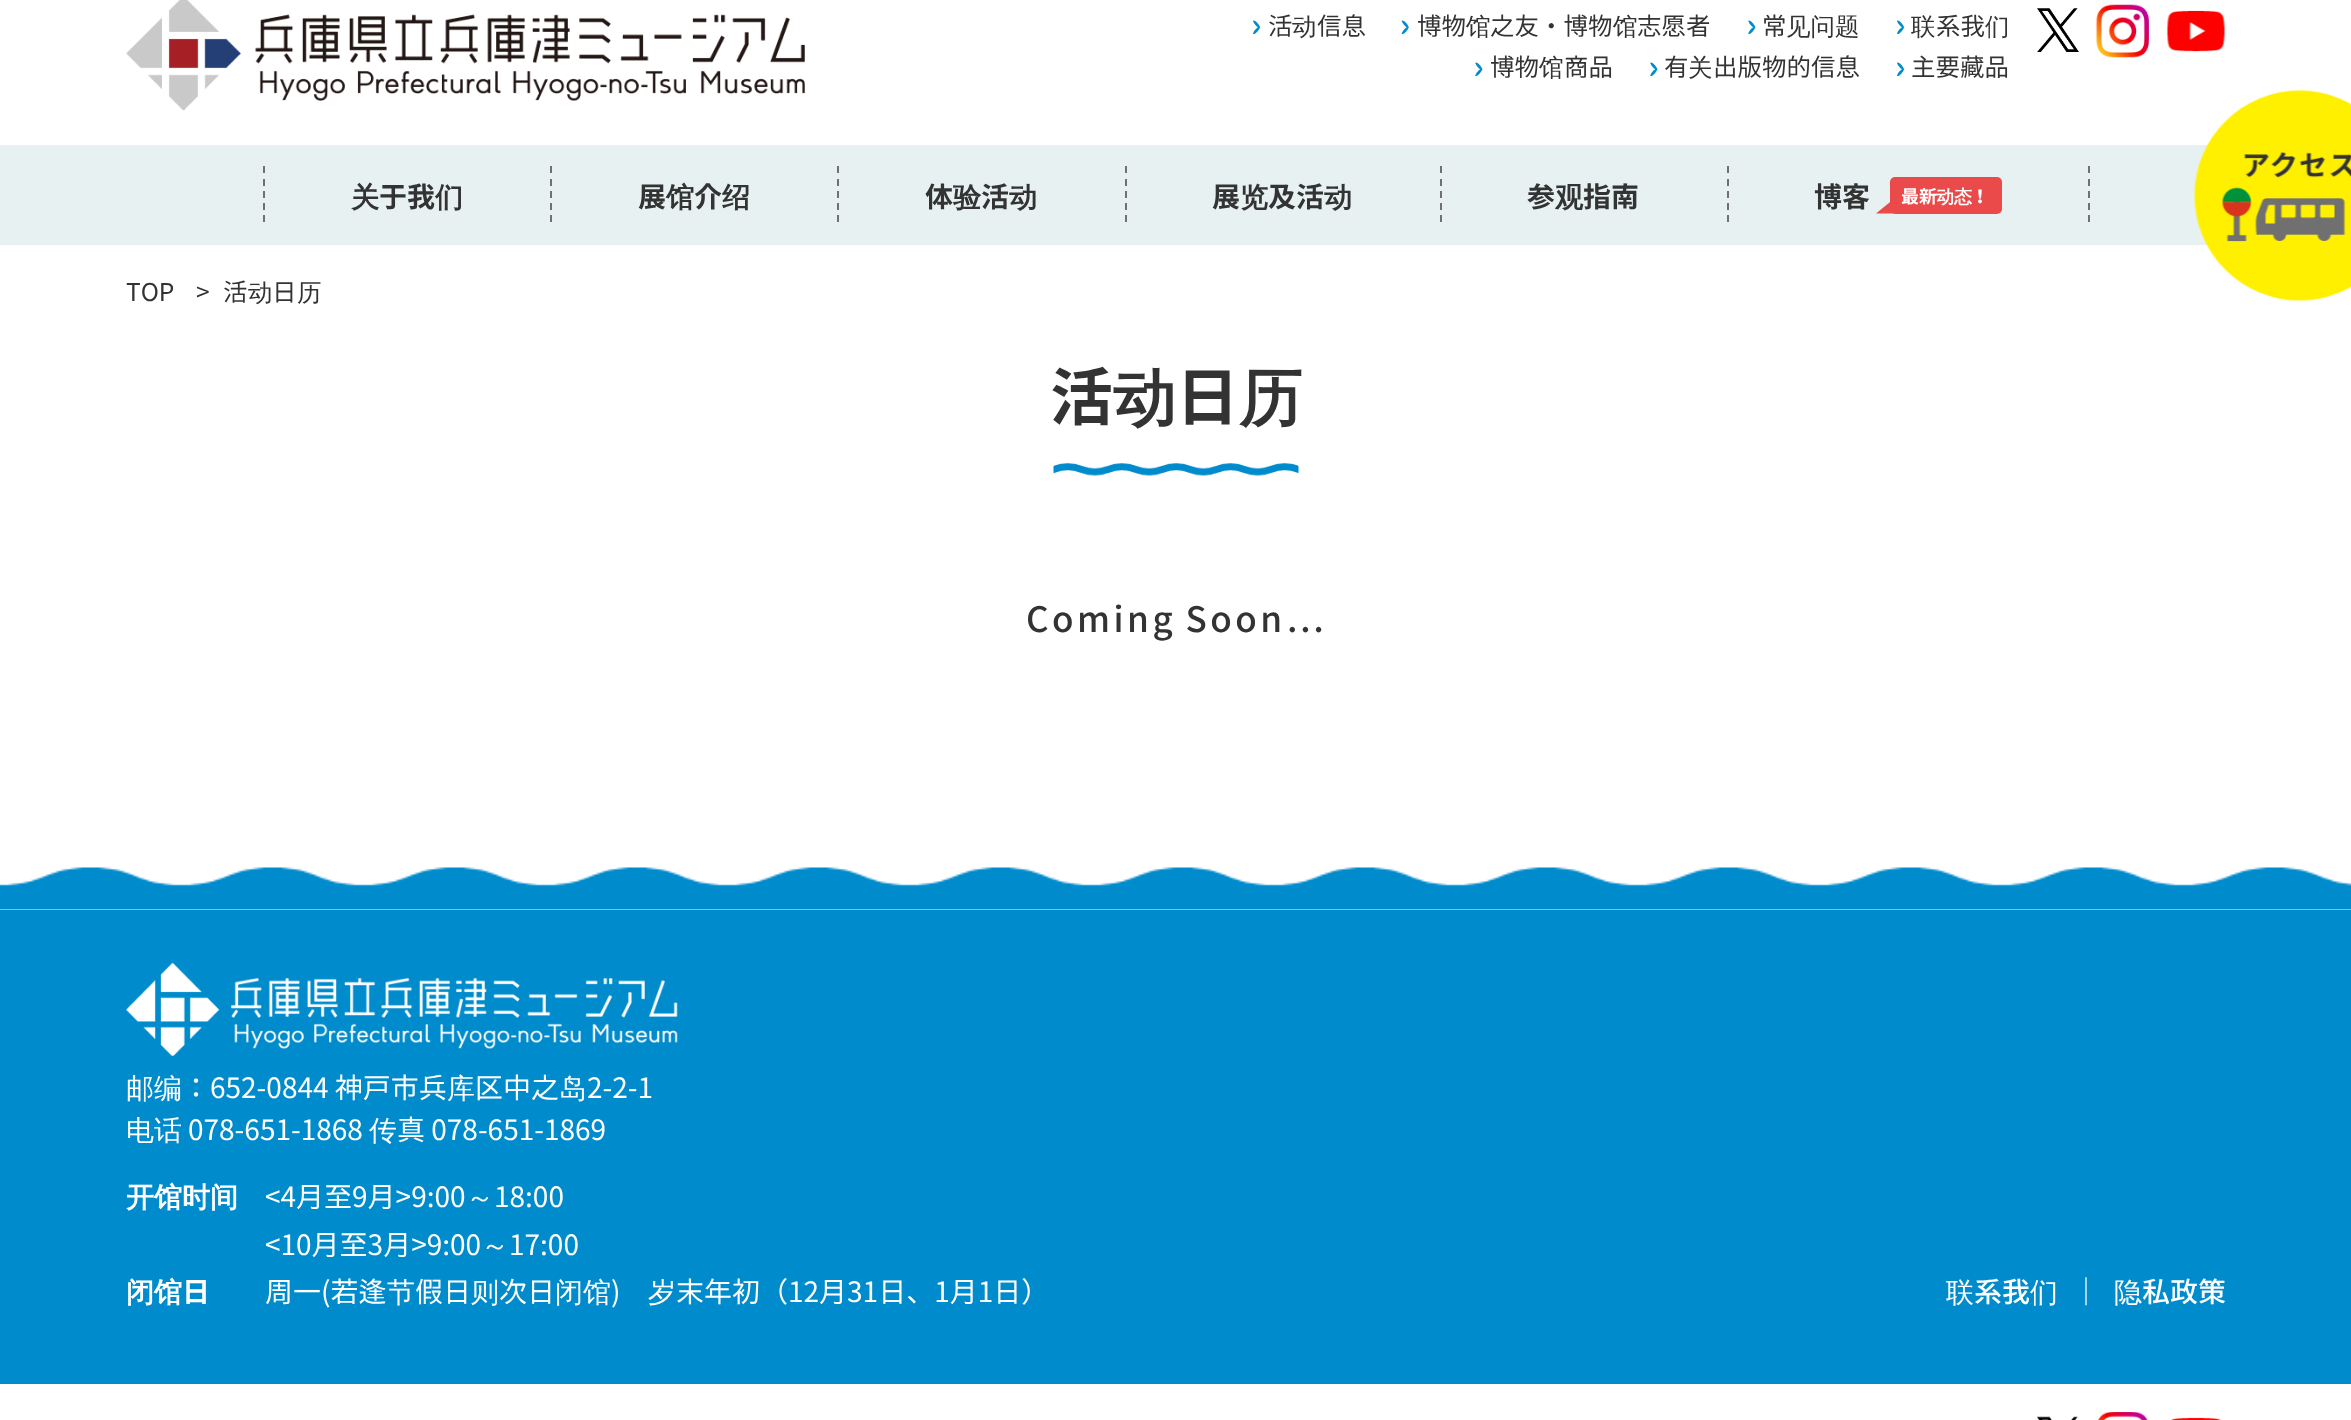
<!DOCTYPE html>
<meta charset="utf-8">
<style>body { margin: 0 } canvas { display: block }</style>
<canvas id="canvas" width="2351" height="1420"></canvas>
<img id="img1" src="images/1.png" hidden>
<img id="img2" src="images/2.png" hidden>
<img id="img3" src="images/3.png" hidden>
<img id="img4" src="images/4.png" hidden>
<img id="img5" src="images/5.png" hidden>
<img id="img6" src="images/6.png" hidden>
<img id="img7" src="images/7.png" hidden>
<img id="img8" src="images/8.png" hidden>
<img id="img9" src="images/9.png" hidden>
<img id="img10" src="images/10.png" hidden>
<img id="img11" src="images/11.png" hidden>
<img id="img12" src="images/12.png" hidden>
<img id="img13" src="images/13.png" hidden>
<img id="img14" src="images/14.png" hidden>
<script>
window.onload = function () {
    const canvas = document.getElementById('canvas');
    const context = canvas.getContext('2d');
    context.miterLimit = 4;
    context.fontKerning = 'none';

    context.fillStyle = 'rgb(255, 255, 255)';
    context.fillRect(0, 0, 2351, 1420);
    context.drawImage(document.getElementById('img1'), 126, 0, 679, 110);
    context.drawImage(document.getElementById('img2'), 1253, 20, 7, 14);
    context.drawImage(document.getElementById('img3'), 1401, 20, 8, 14);
    context.drawImage(document.getElementById('img4'), 1748, 20, 8, 15);
    context.drawImage(document.getElementById('img2'), 1897, 20, 7, 14);
    context.drawImage(document.getElementById('img4'), 1475, 62, 8, 15);
    context.drawImage(document.getElementById('img4'), 1650, 62, 8, 15);
    context.drawImage(document.getElementById('img2'), 1897, 62, 7, 14);
    context.drawImage(document.getElementById('img5'), 2037, 8, 42, 44);
    context.drawImage(document.getElementById('img6'), 2096, 4, 53, 54);
    context.drawImage(document.getElementById('img7'), 2166, 10, 59, 42);
    context.fillStyle = 'rgb(231, 241, 242)';
    context.fillRect(0, 145, 2209, 100);
    context.fillStyle = 'rgb(112, 112, 112)';
    context.fillRect(263, 166, 2, 7);
    context.fillRect(263, 179, 2, 7);
    context.fillRect(263, 191, 2, 7);
    context.fillRect(263, 203, 2, 7);
    context.fillRect(263, 215, 2, 7);
    context.fillRect(550, 166, 2, 7);
    context.fillRect(550, 179, 2, 7);
    context.fillRect(550, 191, 2, 7);
    context.fillRect(550, 203, 2, 7);
    context.fillRect(550, 215, 2, 7);
    context.fillRect(837, 166, 2, 7);
    context.fillRect(837, 179, 2, 7);
    context.fillRect(837, 191, 2, 7);
    context.fillRect(837, 203, 2, 7);
    context.fillRect(837, 215, 2, 7);
    context.fillRect(1125, 166, 2, 7);
    context.fillRect(1125, 179, 2, 7);
    context.fillRect(1125, 191, 2, 7);
    context.fillRect(1125, 203, 2, 7);
    context.fillRect(1125, 215, 2, 7);
    context.fillRect(1440, 166, 2, 7);
    context.fillRect(1440, 179, 2, 7);
    context.fillRect(1440, 191, 2, 7);
    context.fillRect(1440, 203, 2, 7);
    context.fillRect(1440, 215, 2, 7);
    context.fillRect(1727, 166, 2, 7);
    context.fillRect(1727, 179, 2, 7);
    context.fillRect(1727, 191, 2, 7);
    context.fillRect(1727, 203, 2, 7);
    context.fillRect(1727, 215, 2, 7);
    context.fillStyle = 'rgb(235, 74, 74)';
    context.beginPath();
    context.roundRect(1890, 177, 112, 37, 5);
    context.fill();
    context.beginPath();
    context.moveTo(1895, 213.5);
    context.lineTo(1876, 213.5);
    context.lineTo(1895, 198);
    context.closePath();
    context.fill();
    context.fillStyle = 'rgb(112, 112, 112)';
    context.fillRect(2088, 166, 2, 7);
    context.fillRect(2088, 179, 2, 7);
    context.fillRect(2088, 191, 2, 7);
    context.fillRect(2088, 203, 2, 7);
    context.fillRect(2088, 215, 2, 7);
    context.drawImage(document.getElementById('img8'), 2194, 90, 157, 211);
    context.drawImage(document.getElementById('img9'), 1053, 463, 246, 13);
    context.fillStyle = 'rgb(0, 139, 204)';
    context.fillRect(0, 910, 2351, 474);
    context.drawImage(document.getElementById('img10'), 0, 867, 2351, 43);
    context.drawImage(document.getElementById('img11'), 126, 962, 552, 94);
    context.drawImage(document.getElementById('img12'), 2037, 1416, 41, 4);
    context.drawImage(document.getElementById('img13'), 2098, 1412, 50, 8);
    context.drawImage(document.getElementById('img14'), 2171, 1417, 50, 3);
    context.font = '24.5px Noto Sans JP';
    context.fillStyle = 'rgb(51, 51, 51)';
    context.fillText('活', 1268, 35);
    context.font = '500 24.5px WenQuanYi Zen Hei';
    context.fillText('动', 1292, 35);
    context.font = '24.5px Noto Sans JP';
    context.fillText('信息', 1317, 35);
    context.fillText('博物', 1417, 35);
    context.font = '500 24.5px WenQuanYi Zen Hei';
    context.fillText('馆', 1466, 35);
    context.font = '24.5px Noto Sans JP';
    context.fillText('之友・博物', 1490, 35);
    context.font = '500 24.5px WenQuanYi Zen Hei';
    context.fillText('馆', 1613, 35);
    context.font = '24.5px Noto Sans JP';
    context.fillText('志愿者', 1637, 35);
    context.fillText('常', 1762, 35);
    context.font = '500 24.5px WenQuanYi Zen Hei';
    context.fillText('见问题', 1786, 35);
    context.fillText('联', 1911, 35);
    context.font = '24.5px Noto Sans JP';
    context.fillText('系我', 1936, 35);
    context.font = '500 24.5px WenQuanYi Zen Hei';
    context.fillText('们', 1985, 35);
    context.font = '24.5px Noto Sans JP';
    context.fillText('博物', 1490, 76);
    context.font = '500 24.5px WenQuanYi Zen Hei';
    context.fillText('馆', 1539, 76);
    context.font = '24.5px Noto Sans JP';
    context.fillText('商品', 1564, 76);
    context.fillText('有', 1664, 76);
    context.font = '500 24.5px WenQuanYi Zen Hei';
    context.fillText('关', 1688, 76);
    context.font = '24.5px Noto Sans JP';
    context.fillText('出版物的信息', 1713, 76);
    context.fillText('主要藏品', 1911, 76);
    context.font = 'bold 28px WenQuanYi Zen Hei';
    context.fillText('关', 351, 207);
    context.font = 'bold 28px Noto Sans JP';
    context.fillText('于我', 379, 207);
    context.font = 'bold 28px WenQuanYi Zen Hei';
    context.fillText('们', 435, 207);
    context.font = 'bold 28px Noto Sans JP';
    context.fillText('展', 638, 207);
    context.font = 'bold 28px WenQuanYi Zen Hei';
    context.fillText('馆', 666, 207);
    context.font = 'bold 28px Noto Sans JP';
    context.fillText('介', 694, 207);
    context.font = 'bold 28px WenQuanYi Zen Hei';
    context.fillText('绍', 722, 207);
    context.font = 'bold 28px Noto Sans JP';
    context.fillText('体', 925, 207);
    context.font = 'bold 28px WenQuanYi Zen Hei';
    context.fillText('验', 953, 207);
    context.font = 'bold 28px Noto Sans JP';
    context.fillText('活', 981, 207);
    context.font = 'bold 28px WenQuanYi Zen Hei';
    context.fillText('动', 1009, 207);
    context.font = 'bold 28px Noto Sans JP';
    context.fillText('展', 1212, 207);
    context.font = 'bold 28px WenQuanYi Zen Hei';
    context.fillText('览', 1240, 207);
    context.font = 'bold 28px Noto Sans JP';
    context.fillText('及活', 1268, 207);
    context.font = 'bold 28px WenQuanYi Zen Hei';
    context.fillText('动', 1324, 207);
    context.font = 'bold 28px Noto Sans JP';
    context.fillText('参', 1527, 207);
    context.font = 'bold 28px WenQuanYi Zen Hei';
    context.fillText('观', 1555, 207);
    context.font = 'bold 28px Noto Sans JP';
    context.fillText('指南', 1583, 207);
    context.fillText('博客', 1814, 207);
    context.font = 'bold 18px Noto Sans JP';
    context.fillStyle = 'rgb(255, 255, 255)';
    context.fillText('最新', 1901, 203);
    context.font = 'bold 18px WenQuanYi Zen Hei';
    context.fillText('动态', 1936, 203);
    context.font = 'bold 18px Noto Sans JP';
    context.fillText('！', 1971, 203);
    context.font = '24.5px Noto Sans JP';
    context.fillStyle = 'rgb(51, 51, 51)';
    context.fillText('TOP', 126, 301);
    context.fillText('>', 196, 301);
    context.fillText('活', 223, 301);
    context.font = '500 24.5px WenQuanYi Zen Hei';
    context.fillText('动', 248, 301);
    context.font = '24.5px Noto Sans JP';
    context.fillText('日', 272, 301);
    context.font = '500 24.5px WenQuanYi Zen Hei';
    context.fillText('历', 297, 301);
    context.font = 'bold 63px Noto Sans JP';
    context.fillText('活', 1050, 420);
    context.font = 'bold 63px WenQuanYi Zen Hei';
    context.fillText('动', 1113, 420);
    context.font = 'bold 63px Noto Sans JP';
    context.fillText('日', 1176, 420);
    context.font = 'bold 63px WenQuanYi Zen Hei';
    context.fillText('历', 1239, 420);
    context.letterSpacing = '3.5px';
    context.wordSpacing = '-2px';
    context.font = '500 35px Noto Sans JP';
    context.fillText('Coming Soon…', 1026, 632);
    context.letterSpacing = '0px';
    context.wordSpacing = '0px';
    context.font = '500 28px WenQuanYi Zen Hei';
    context.fillStyle = 'rgb(255, 255, 255)';
    context.fillText('邮编', 126, 1098);
    context.font = '28px Noto Sans JP';
    context.fillText('：652-0844 神戸市兵', 182, 1098);
    context.font = '500 28px WenQuanYi Zen Hei';
    context.fillText('库', 447, 1098);
    context.font = '28px Noto Sans JP';
    context.fillText('区中之', 475, 1098);
    context.font = '500 28px WenQuanYi Zen Hei';
    context.fillText('岛', 559, 1098);
    context.font = '28px Noto Sans JP';
    context.fillText('2-2-1', 587, 1098);
    context.font = '500 28px WenQuanYi Zen Hei';
    context.fillText('电话', 126, 1140);
    context.font = '28px Noto Sans JP';
    context.fillText('078-651-1868', 188, 1140);
    context.font = '500 28px WenQuanYi Zen Hei';
    context.fillText('传', 369, 1140);
    context.font = '28px Noto Sans JP';
    context.fillText('真 078-651-1869', 397, 1140);
    context.font = 'bold 28px WenQuanYi Zen Hei';
    context.fillText('开馆时间', 126, 1207);
    context.font = '28px Noto Sans JP';
    context.fillText('<4月至9月>9:00', 265, 1207);
    context.font = '500 28px WenQuanYi Zen Hei';
    context.fillText('～', 466, 1207);
    context.font = '28px Noto Sans JP';
    context.fillText('18:00', 494, 1207);
    context.fillText('<10月至3月>9:00', 265, 1255);
    context.font = '500 28px WenQuanYi Zen Hei';
    context.fillText('～', 481, 1255);
    context.font = '28px Noto Sans JP';
    context.fillText('17:00', 509, 1255);
    context.font = 'bold 28px WenQuanYi Zen Hei';
    context.fillText('闭馆', 126, 1302);
    context.font = 'bold 28px Noto Sans JP';
    context.fillText('日', 182, 1302);
    context.font = '28px Noto Sans JP';
    context.fillText('周一(若逢', 265, 1302);
    context.font = '500 28px WenQuanYi Zen Hei';
    context.fillText('节', 387, 1302);
    context.font = '28px Noto Sans JP';
    context.fillText('假日', 415, 1302);
    context.font = '500 28px WenQuanYi Zen Hei';
    context.fillText('则', 471, 1302);
    context.font = '28px Noto Sans JP';
    context.fillText('次日', 499, 1302);
    context.font = '500 28px WenQuanYi Zen Hei';
    context.fillText('闭馆', 555, 1302);
    context.font = '28px Noto Sans JP';
    context.fillText(')', 611, 1302);
    context.font = '500 28px WenQuanYi Zen Hei';
    context.fillText('岁', 648, 1302);
    context.font = '28px Noto Sans JP';
    context.fillText('末年初（12月31日、1月1日）', 676, 1302);
    context.font = '500 28px WenQuanYi Zen Hei';
    context.fillText('联', 1946, 1302);
    context.font = '500 28px Noto Sans JP';
    context.fillText('系我', 1974, 1302);
    context.font = '500 28px WenQuanYi Zen Hei';
    context.fillText('们', 2030, 1302);
    context.font = '28px Noto Sans JP';
    context.fillText('｜', 2072, 1302);
    context.font = '500 28px WenQuanYi Zen Hei';
    context.fillText('隐', 2114, 1302);
    context.font = '500 28px Noto Sans JP';
    context.fillText('私政策', 2142, 1302);
};
</script>
